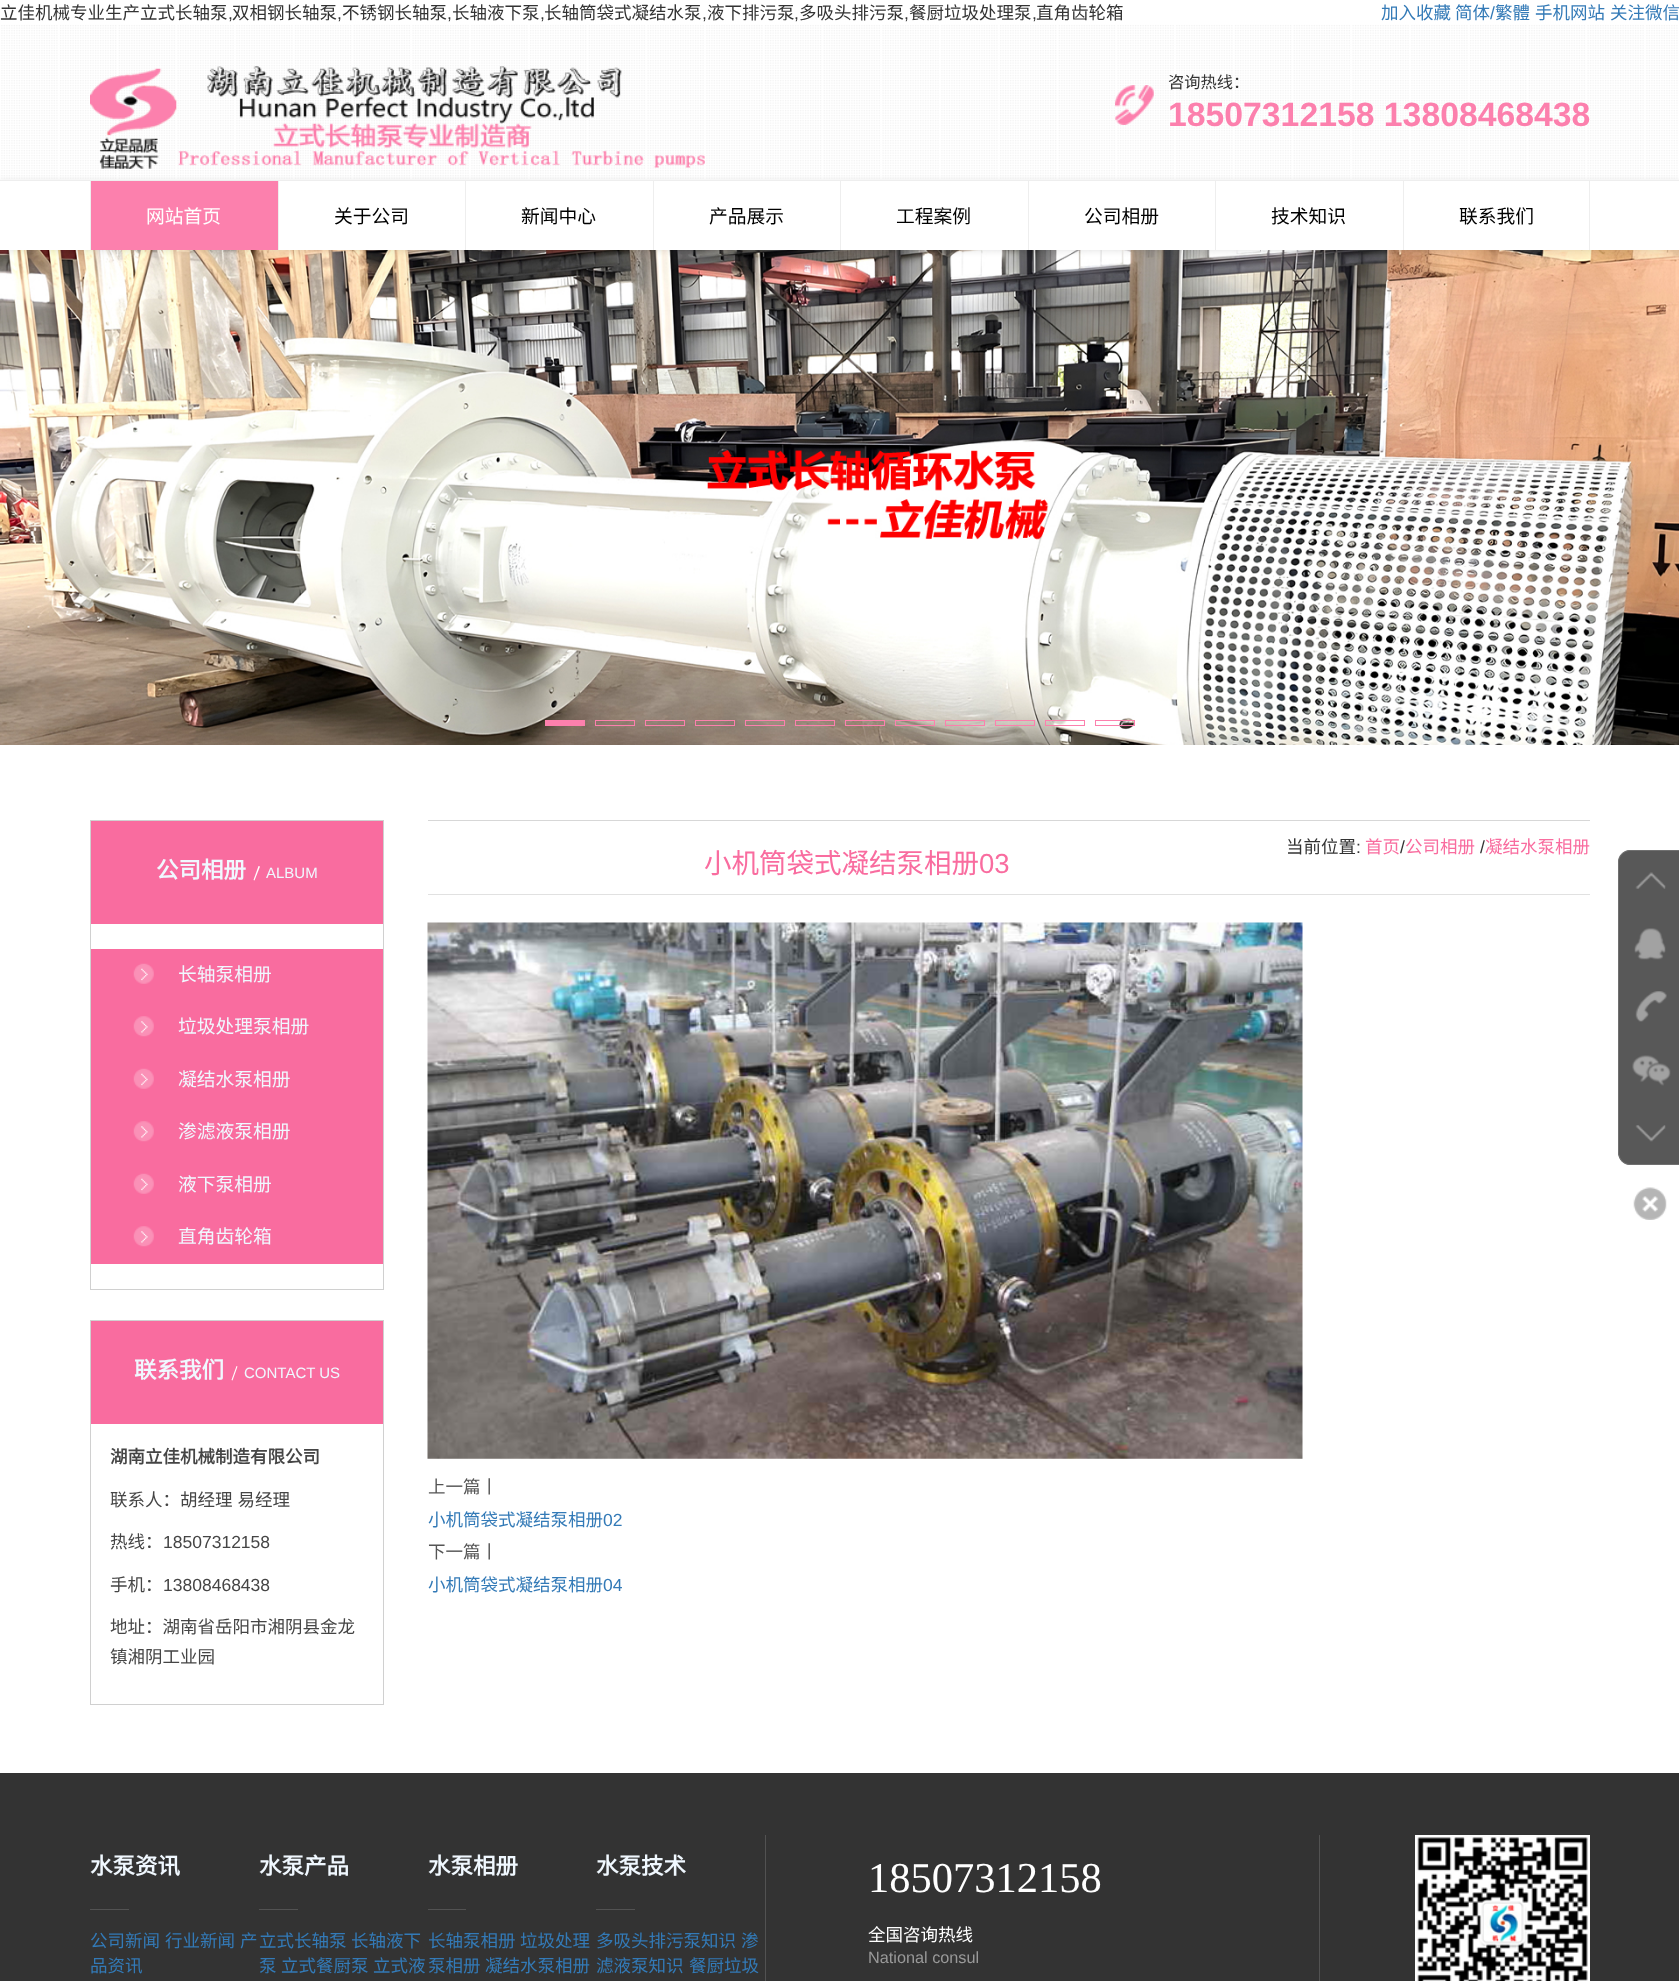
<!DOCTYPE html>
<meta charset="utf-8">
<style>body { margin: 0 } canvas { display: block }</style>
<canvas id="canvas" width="1679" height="1981"></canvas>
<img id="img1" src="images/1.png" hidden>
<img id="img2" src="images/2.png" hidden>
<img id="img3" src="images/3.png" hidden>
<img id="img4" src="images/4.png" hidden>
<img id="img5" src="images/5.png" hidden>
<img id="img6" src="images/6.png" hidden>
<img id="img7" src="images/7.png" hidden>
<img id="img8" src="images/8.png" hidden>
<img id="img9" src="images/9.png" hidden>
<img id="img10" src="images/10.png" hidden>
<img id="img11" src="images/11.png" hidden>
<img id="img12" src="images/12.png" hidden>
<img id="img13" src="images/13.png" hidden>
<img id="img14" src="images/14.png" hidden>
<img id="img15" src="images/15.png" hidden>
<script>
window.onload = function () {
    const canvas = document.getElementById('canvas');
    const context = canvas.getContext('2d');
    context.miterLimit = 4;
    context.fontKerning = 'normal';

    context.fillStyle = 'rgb(255, 255, 255)';
    context.fillRect(0, 0, 1679, 1981);
    context.drawImage(document.getElementById('img1'), 1, 25, 1677, 154);
    context.drawImage(document.getElementById('img2'), 90, 66, 615, 103);
    context.drawImage(document.getElementById('img3'), 1115, 85, 39, 40);
    context.drawImage(document.getElementById('img4'), 0, 250, 1679, 495);
    context.save();
    context.beginPath();
    context.moveTo(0, 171);
    context.lineTo(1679, 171);
    context.lineTo(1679, 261);
    context.lineTo(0, 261);
    context.closePath();
    context.moveTo(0, 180);
    context.lineTo(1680, 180);
    context.lineTo(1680, 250);
    context.lineTo(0, 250);
    context.closePath();
    context.clip('evenodd');
    context.fillStyle = 'rgba(0, 0, 0, 0.1)';
    context.filter = 'blur(3px)';
    context.beginPath();
    context.rect(0, 181, 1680, 70);
    context.fill();
    context.filter = 'none';
    context.restore();
    context.fillStyle = 'rgb(238, 238, 238)';
    context.fillRect(0, 180, 1679, 1);
    context.fillStyle = 'rgb(252, 128, 173)';
    context.fillRect(91, 181, 187, 69);
    context.fillStyle = 'rgb(238, 238, 238)';
    context.fillRect(90, 181, 1, 69);
    context.fillRect(278, 181, 1, 69);
    context.fillRect(465, 181, 1, 69);
    context.fillRect(653, 181, 1, 69);
    context.fillRect(840, 181, 1, 69);
    context.fillRect(1028, 181, 1, 69);
    context.fillRect(1215, 181, 1, 69);
    context.fillRect(1403, 181, 1, 69);
    context.fillRect(1589, 181, 1, 69);
    context.fillStyle = 'rgb(252, 128, 173)';
    context.fillRect(545, 720, 40, 6);
    context.strokeStyle = 'rgb(252, 128, 173)';
    context.strokeRect(595.5, 720.5, 39, 5);
    context.strokeRect(645.5, 720.5, 39, 5);
    context.strokeRect(695.5, 720.5, 39, 5);
    context.strokeRect(745.5, 720.5, 39, 5);
    context.strokeRect(795.5, 720.5, 39, 5);
    context.strokeRect(845.5, 720.5, 39, 5);
    context.strokeRect(895.5, 720.5, 39, 5);
    context.strokeRect(945.5, 720.5, 39, 5);
    context.strokeRect(995.5, 720.5, 39, 5);
    context.strokeRect(1045.5, 720.5, 39, 5);
    context.strokeRect(1095.5, 720.5, 39, 5);
    context.strokeStyle = 'rgb(208, 208, 208)';
    context.strokeRect(90.5, 820.5, 293, 469);
    context.fillStyle = 'rgb(249, 108, 159)';
    context.fillRect(91, 821, 292, 103);
    context.fillStyle = 'rgb(255, 255, 255)';
    context.beginPath();
    context.moveTo(258.5, 866);
    context.lineTo(260, 866.5);
    context.lineTo(254.5, 880.5);
    context.lineTo(253.5, 880);
    context.closePath();
    context.fill();
    context.fillStyle = 'rgb(249, 108, 159)';
    context.fillRect(91, 949, 292, 315);
    context.drawImage(document.getElementById('img5'), 133, 963, 21, 21);
    context.drawImage(document.getElementById('img6'), 133, 1016, 21, 21);
    context.drawImage(document.getElementById('img5'), 133, 1068, 21, 21);
    context.drawImage(document.getElementById('img6'), 133, 1121, 21, 21);
    context.drawImage(document.getElementById('img7'), 133, 1173, 21, 21);
    context.drawImage(document.getElementById('img6'), 133, 1226, 21, 21);
    context.strokeRect(90.5, 1320.5, 293, 384);
    context.fillRect(91, 1321, 292, 103);
    context.fillStyle = 'rgb(255, 255, 255)';
    context.beginPath();
    context.moveTo(236.5, 1366);
    context.lineTo(237.5, 1366.5);
    context.lineTo(232.5, 1380.5);
    context.lineTo(231.5, 1380);
    context.closePath();
    context.fill();
    context.fillStyle = 'rgb(215, 215, 215)';
    context.fillRect(428, 820, 1162, 1);
    context.fillStyle = 'rgb(225, 225, 225)';
    context.fillRect(428, 894, 1162, 1);
    context.drawImage(document.getElementById('img8'), 427, 922, 876, 537);
    context.fillStyle = 'rgb(88, 88, 88)';
    context.beginPath();
    context.moveTo(1631, 850);
    context.lineTo(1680, 850);
    context.lineTo(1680, 1165);
    context.lineTo(1631, 1165);
    context.bezierCurveTo(1624, 1165, 1618, 1159, 1618, 1152);
    context.lineTo(1618, 863);
    context.bezierCurveTo(1618, 856, 1624, 850, 1631, 850);
    context.closePath();
    context.fill();
    context.fillStyle = 'rgb(112, 112, 112)';
    context.beginPath();
    context.moveTo(1630, 850);
    context.lineTo(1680, 850);
    context.lineTo(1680, 1165);
    context.lineTo(1630, 1165);
    context.bezierCurveTo(1623, 1165, 1618, 1159, 1618, 1152);
    context.lineTo(1618, 862);
    context.bezierCurveTo(1618, 856, 1623, 850, 1630, 850);
    context.closePath();
    context.moveTo(1630, 851);
    context.lineTo(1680, 851);
    context.lineTo(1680, 1164);
    context.lineTo(1630, 1164);
    context.bezierCurveTo(1624, 1164, 1619, 1159, 1619, 1152);
    context.lineTo(1619, 862);
    context.bezierCurveTo(1619, 856, 1624, 851, 1630, 851);
    context.closePath();
    context.fill('evenodd');
    context.drawImage(document.getElementById('img9'), 1635, 872, 31, 17);
    context.drawImage(document.getElementById('img10'), 1634, 928, 32, 32);
    context.drawImage(document.getElementById('img11'), 1635, 991, 32, 31);
    context.drawImage(document.getElementById('img12'), 1632, 1055, 39, 31);
    context.drawImage(document.getElementById('img13'), 1635, 1125, 31, 17);
    context.drawImage(document.getElementById('img14'), 1633, 1187, 34, 33);
    context.fillStyle = 'rgb(51, 51, 51)';
    context.fillRect(0, 1773, 1679, 208);
    context.fillStyle = 'rgb(82, 82, 82)';
    context.fillRect(90, 1909, 39, 1);
    context.fillRect(259, 1909, 39, 1);
    context.fillRect(428, 1909, 38, 1);
    context.fillRect(596, 1909, 39, 1);
    context.fillRect(1319, 1835, 1, 146);
    context.fillRect(765, 1835, 1, 146);
    context.drawImage(document.getElementById('img15'), 1415, 1835, 175, 146);
    context.font = '17.5px Noto Sans CJK SC';
    context.fillStyle = 'rgb(51, 51, 51)';
    context.fillText('立佳机械专业生产立式长轴泵', 0, 19);
    context.font = '17.5px Liberation Sans';
    context.fillText(',', 228, 19);
    context.font = '17.5px Noto Sans CJK SC';
    context.fillText('双相钢长轴泵', 232, 19);
    context.font = '17.5px Liberation Sans';
    context.fillText(',', 337, 19);
    context.font = '17.5px Noto Sans CJK SC';
    context.fillText('不锈钢长轴泵', 342, 19);
    context.font = '17.5px Liberation Sans';
    context.fillText(',', 447, 19);
    context.font = '17.5px Noto Sans CJK SC';
    context.fillText('长轴液下泵', 452, 19);
    context.font = '17.5px Liberation Sans';
    context.fillText(',', 540, 19);
    context.font = '17.5px Noto Sans CJK SC';
    context.fillText('长轴筒袋式凝结水泵', 544, 19);
    context.font = '17.5px Liberation Sans';
    context.fillText(',', 702, 19);
    context.font = '17.5px Noto Sans CJK SC';
    context.fillText('液下排污泵', 707, 19);
    context.font = '17.5px Liberation Sans';
    context.fillText(',', 794, 19);
    context.font = '17.5px Noto Sans CJK SC';
    context.fillText('多吸头排污泵', 799, 19);
    context.font = '17.5px Liberation Sans';
    context.fillText(',', 904, 19);
    context.font = '17.5px Noto Sans CJK SC';
    context.fillText('餐厨垃圾处理泵', 909, 19);
    context.font = '17.5px Liberation Sans';
    context.fillText(',', 1032, 19);
    context.font = '17.5px Noto Sans CJK SC';
    context.fillText('直角齿轮箱', 1036, 19);
    context.fillStyle = 'rgb(51, 122, 183)';
    context.fillText('加入收藏', 1381, 19);
    context.fillText('简体', 1455, 19);
    context.font = '17.5px Liberation Sans';
    context.fillText('/', 1490, 19);
    context.font = '17.5px Noto Sans CJK SC';
    context.fillText('繁體', 1495, 19);
    context.fillText('手机网站', 1535, 19);
    context.fillText('关注微信', 1610, 19);
    context.font = '16.25px Noto Sans CJK SC';
    context.fillStyle = 'rgb(51, 51, 51)';
    context.fillText('咨询热线：', 1168, 88);
    context.font = 'bold 33.75px Liberation Sans';
    context.fillStyle = 'rgb(252, 128, 173)';
    context.fillText('18507312158 13808468438', 1168, 126);
    context.font = '18.75px Noto Sans CJK SC';
    context.fillStyle = 'rgb(255, 255, 255)';
    context.fillText('网站首页', 146, 223);
    context.fillStyle = 'rgb(0, 0, 0)';
    context.fillText('关于公司', 334, 223);
    context.fillText('新闻中心', 521, 223);
    context.fillText('产品展示', 709, 223);
    context.fillText('工程案例', 896, 223);
    context.fillText('公司相册', 1084, 223);
    context.fillText('技术知识', 1271, 223);
    context.fillText('联系我们', 1459, 223);
    context.font = 'bold 22.5px Noto Sans CJK SC';
    context.fillStyle = 'rgb(240, 248, 255)';
    context.fillText('公司相册', 156, 878);
    context.font = '15px Liberation Sans';
    context.fillText('ALBUM', 266, 878);
    context.font = '18.75px Noto Sans CJK SC';
    context.fillText('长轴泵相册', 178, 981);
    context.fillText('垃圾处理泵相册', 178, 1033);
    context.fillText('凝结水泵相册', 178, 1086);
    context.fillText('渗滤液泵相册', 178, 1138);
    context.fillText('液下泵相册', 178, 1191);
    context.fillText('直角齿轮箱', 178, 1243);
    context.font = 'bold 22.5px Noto Sans CJK SC';
    context.fillText('联系我们', 134, 1378);
    context.font = '15px Liberation Sans';
    context.fillText('CONTACT US', 244, 1378);
    context.font = 'bold 17.5px Noto Sans CJK SC';
    context.fillStyle = 'rgb(69, 69, 69)';
    context.fillText('湖南立佳机械制造有限公司', 110, 1463);
    context.wordSpacing = '1px';
    context.font = '17.5px Noto Sans CJK SC';
    context.fillText('联系人：胡经理 易经理', 110, 1506);
    context.wordSpacing = '0px';
    context.fillText('热线：', 110, 1548);
    context.font = '17.5px Liberation Sans';
    context.fillText('18507312158', 163, 1548);
    context.font = '17.5px Noto Sans CJK SC';
    context.fillText('手机：', 110, 1591);
    context.font = '17.5px Liberation Sans';
    context.fillText('13808468438', 163, 1591);
    context.font = '17.5px Noto Sans CJK SC';
    context.fillText('地址：湖南省岳阳市湘阴县金龙', 110, 1633);
    context.fillText('镇湘阴工业园', 110, 1663);
    context.fillStyle = 'rgb(51, 51, 51)';
    context.fillText('当前位置', 1286, 853);
    context.font = '17.5px Liberation Sans';
    context.fillText(':', 1356, 853);
    context.font = '17.5px Noto Sans CJK SC';
    context.fillStyle = 'rgb(249, 108, 159)';
    context.fillText('首页', 1365, 853);
    context.font = '17.5px Liberation Sans';
    context.fillStyle = 'rgb(51, 51, 51)';
    context.fillText('/', 1400, 853);
    context.font = '17.5px Noto Sans CJK SC';
    context.fillStyle = 'rgb(249, 108, 159)';
    context.fillText('公司相册', 1405, 853);
    context.font = '17.5px Liberation Sans';
    context.fillStyle = 'rgb(51, 51, 51)';
    context.fillText('/', 1480, 853);
    context.font = '17.5px Noto Sans CJK SC';
    context.fillStyle = 'rgb(249, 108, 159)';
    context.fillText('凝结水泵相册', 1485, 853);
    context.font = '27.5px Noto Sans CJK SC';
    context.fillText('小机筒袋式凝结泵相册', 704, 873);
    context.font = '27.5px Liberation Sans';
    context.fillText('03', 979, 873);
    context.font = '17.5px Noto Sans CJK SC';
    context.fillStyle = 'rgb(85, 85, 85)';
    context.fillText('上一篇丨', 428, 1493);
    context.fillStyle = 'rgb(51, 122, 183)';
    context.fillText('小机筒袋式凝结泵相册', 428, 1526);
    context.font = '17.5px Liberation Sans';
    context.fillText('02', 603, 1526);
    context.font = '17.5px Noto Sans CJK SC';
    context.fillStyle = 'rgb(85, 85, 85)';
    context.fillText('下一篇丨', 428, 1558);
    context.fillStyle = 'rgb(51, 122, 183)';
    context.fillText('小机筒袋式凝结泵相册', 428, 1591);
    context.font = '17.5px Liberation Sans';
    context.fillText('04', 603, 1591);
    context.font = 'bold 22.5px Noto Sans CJK SC';
    context.fillStyle = 'rgb(240, 248, 255)';
    context.fillText('水泵资讯', 90, 1874);
    context.font = '17.5px Noto Sans CJK SC';
    context.fillStyle = 'rgb(51, 122, 183)';
    context.fillText('公司新闻', 90, 1947);
    context.fillText('行业新闻', 165, 1947);
    context.fillText('产', 240, 1947);
    context.fillText('品资讯', 90, 1972);
    context.font = 'bold 22.5px Noto Sans CJK SC';
    context.fillStyle = 'rgb(240, 248, 255)';
    context.fillText('水泵产品', 259, 1874);
    context.font = '17.5px Noto Sans CJK SC';
    context.fillStyle = 'rgb(51, 122, 183)';
    context.fillText('立式长轴泵', 259, 1947);
    context.fillText('长轴液下', 351, 1947);
    context.fillText('泵', 259, 1972);
    context.fillText('立式餐厨泵', 281, 1972);
    context.fillText('立式液', 373, 1972);
    context.font = 'bold 22.5px Noto Sans CJK SC';
    context.fillStyle = 'rgb(240, 248, 255)';
    context.fillText('水泵相册', 428, 1874);
    context.font = '17.5px Noto Sans CJK SC';
    context.fillStyle = 'rgb(51, 122, 183)';
    context.fillText('长轴泵相册', 428, 1947);
    context.fillText('垃圾处理', 520, 1947);
    context.fillText('泵相册', 428, 1972);
    context.fillText('凝结水泵相册', 485, 1972);
    context.font = 'bold 22.5px Noto Sans CJK SC';
    context.fillStyle = 'rgb(240, 248, 255)';
    context.fillText('水泵技术', 596, 1874);
    context.font = '17.5px Noto Sans CJK SC';
    context.fillStyle = 'rgb(51, 122, 183)';
    context.fillText('多吸头排污泵知识', 596, 1947);
    context.fillText('渗', 741, 1947);
    context.fillText('滤液泵知识', 596, 1972);
    context.fillText('餐厨垃圾', 689, 1972);
    context.font = '42.5px Liberation Serif';
    context.fillStyle = 'rgb(255, 255, 255)';
    context.fillText('18507312158', 868, 1892);
    context.font = '17.5px Noto Sans CJK SC';
    context.fillText('全国咨询热线', 868, 1941);
    context.font = '16.25px Liberation Sans';
    context.fillStyle = 'rgb(153, 153, 153)';
    context.fillText('National consul', 868, 1963);
};
</script>
